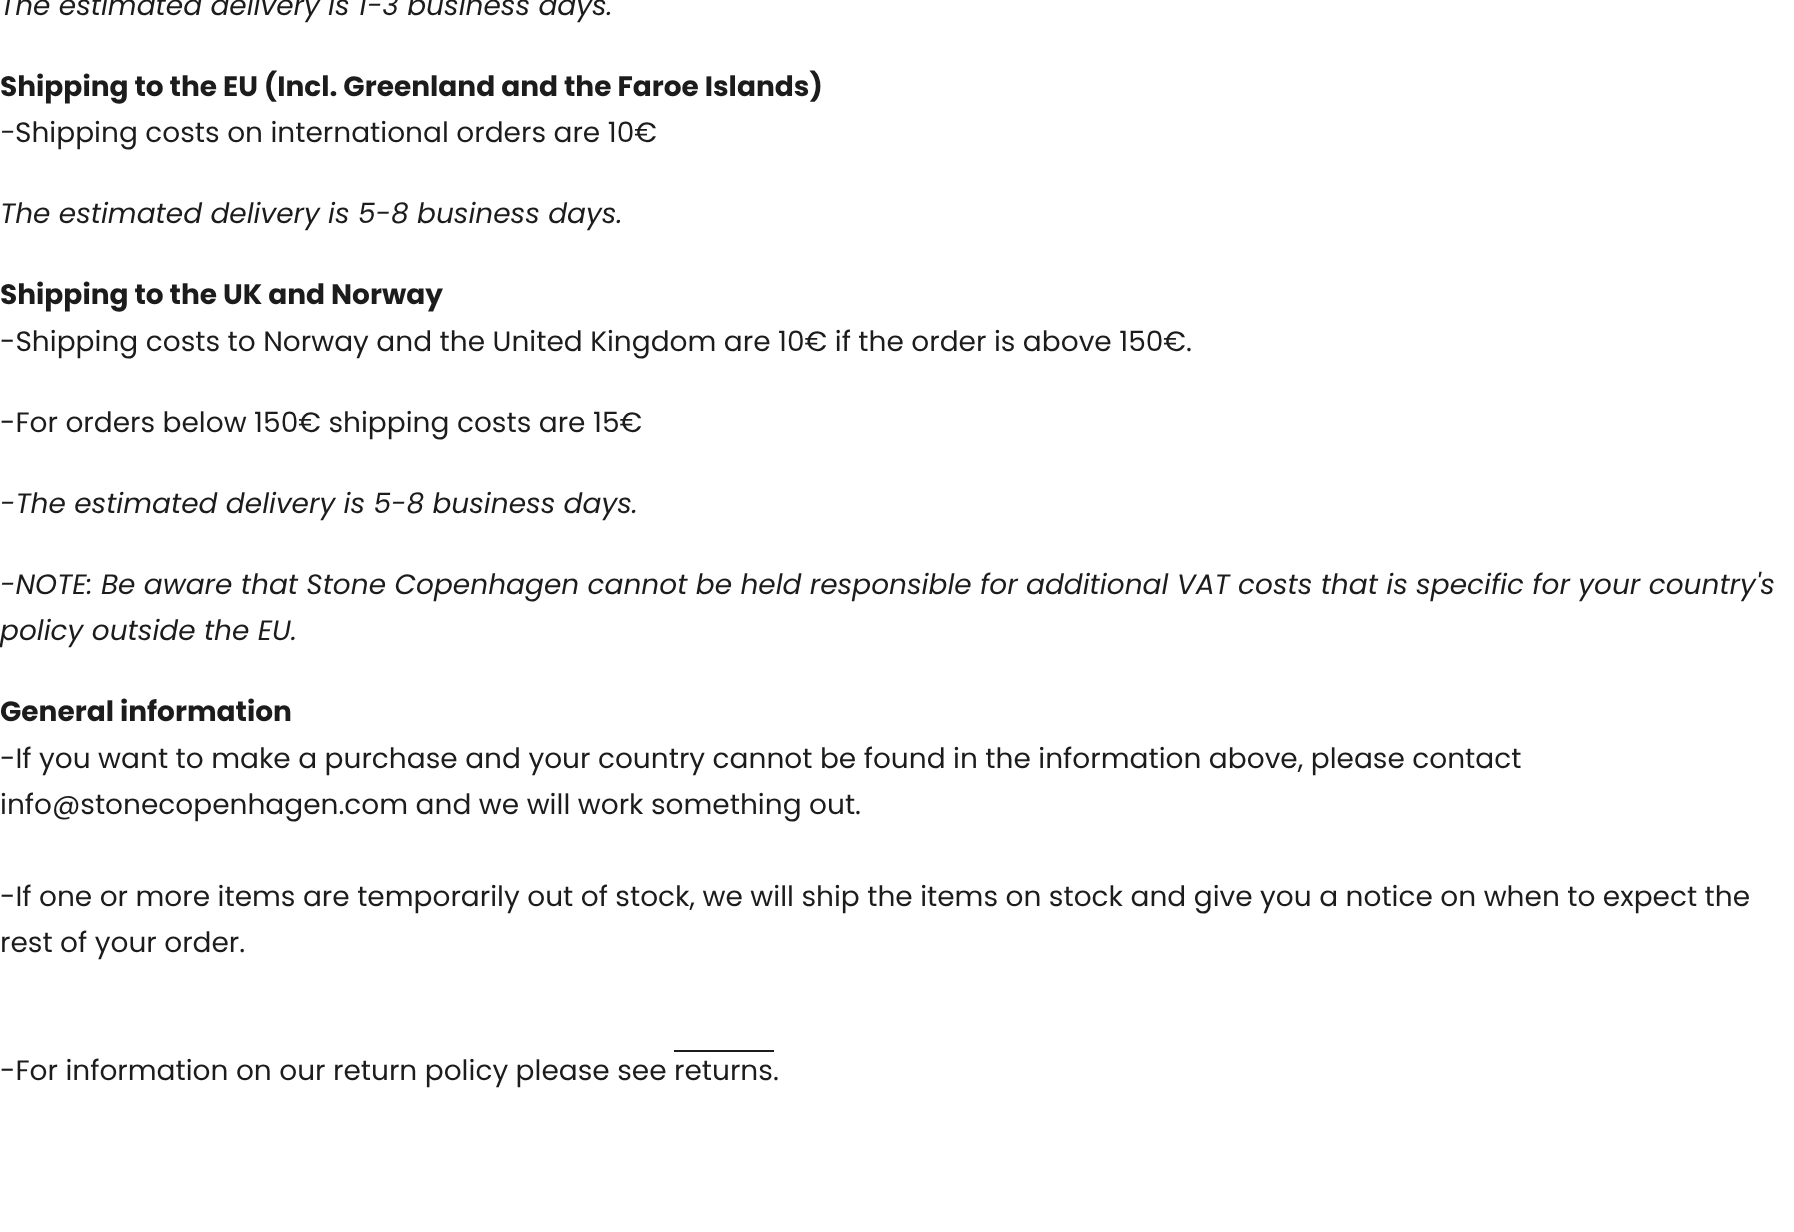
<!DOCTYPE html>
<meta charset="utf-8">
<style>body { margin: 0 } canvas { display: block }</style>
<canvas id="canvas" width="1794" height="1232"></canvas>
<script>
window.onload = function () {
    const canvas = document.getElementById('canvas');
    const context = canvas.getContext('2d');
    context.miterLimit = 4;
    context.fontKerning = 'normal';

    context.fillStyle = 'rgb(255, 255, 255)';
    context.fillRect(0, 0, 1794, 1232);
    context.fillStyle = 'rgb(28, 28, 28)';
    context.fillRect(674, 1050, 100, 2);
    context.font = 'italic 28px Poppins';
    context.fillText('The estimated delivery is 1-3 business days.', 0, 15);
    context.font = 'bold 28px Poppins';
    context.fillText('Shipping to the EU (Incl. Greenland and the Faroe Islands)', 0, 96);
    context.font = 'italic 28px Poppins';
    context.fillText('-', 0, 142);
    context.font = '28px Poppins';
    context.fillText('Shipping costs on international orders are 10€', 15, 142);
    context.font = 'italic 28px Poppins';
    context.fillText('The estimated delivery is 5-8 business days.', 0, 223);
    context.font = 'bold 28px Poppins';
    context.fillText('Shipping to the UK and Norway', 0, 304);
    context.font = '28px Poppins';
    context.fillText('-Shipping costs to Norway and the United Kingdom are 10€ if the order is above 150€.', 0, 351);
    context.fillText('-For orders below 150€ shipping costs are 15€', 0, 432);
    context.font = 'italic 28px Poppins';
    context.fillText('-The estimated delivery is 5-8 business days.', 0, 513);
    context.fillText('-NOTE: Be aware that Stone Copenhagen cannot be held responsible for additional VAT costs that is specific for your country\'s', 0, 594);
    context.fillText('policy outside the EU.', 0, 640);
    context.font = 'bold 28px Poppins';
    context.fillText('General information', 0, 721);
    context.font = '28px Poppins';
    context.fillText('-If you want to make a purchase and your country cannot be found in the information above, please contact', 0, 768);
    context.fillText('info@stonecopenhagen.com and we will work something out.', 0, 814);
    context.fillText('-If one or more items are temporarily out of stock, we will ship the items on stock and give you a notice on when to expect the', 0, 906);
    context.fillText('rest of your order.', 0, 952);
    context.fillText('-For information on our return policy please see returns.', 0, 1080);
};
</script>
